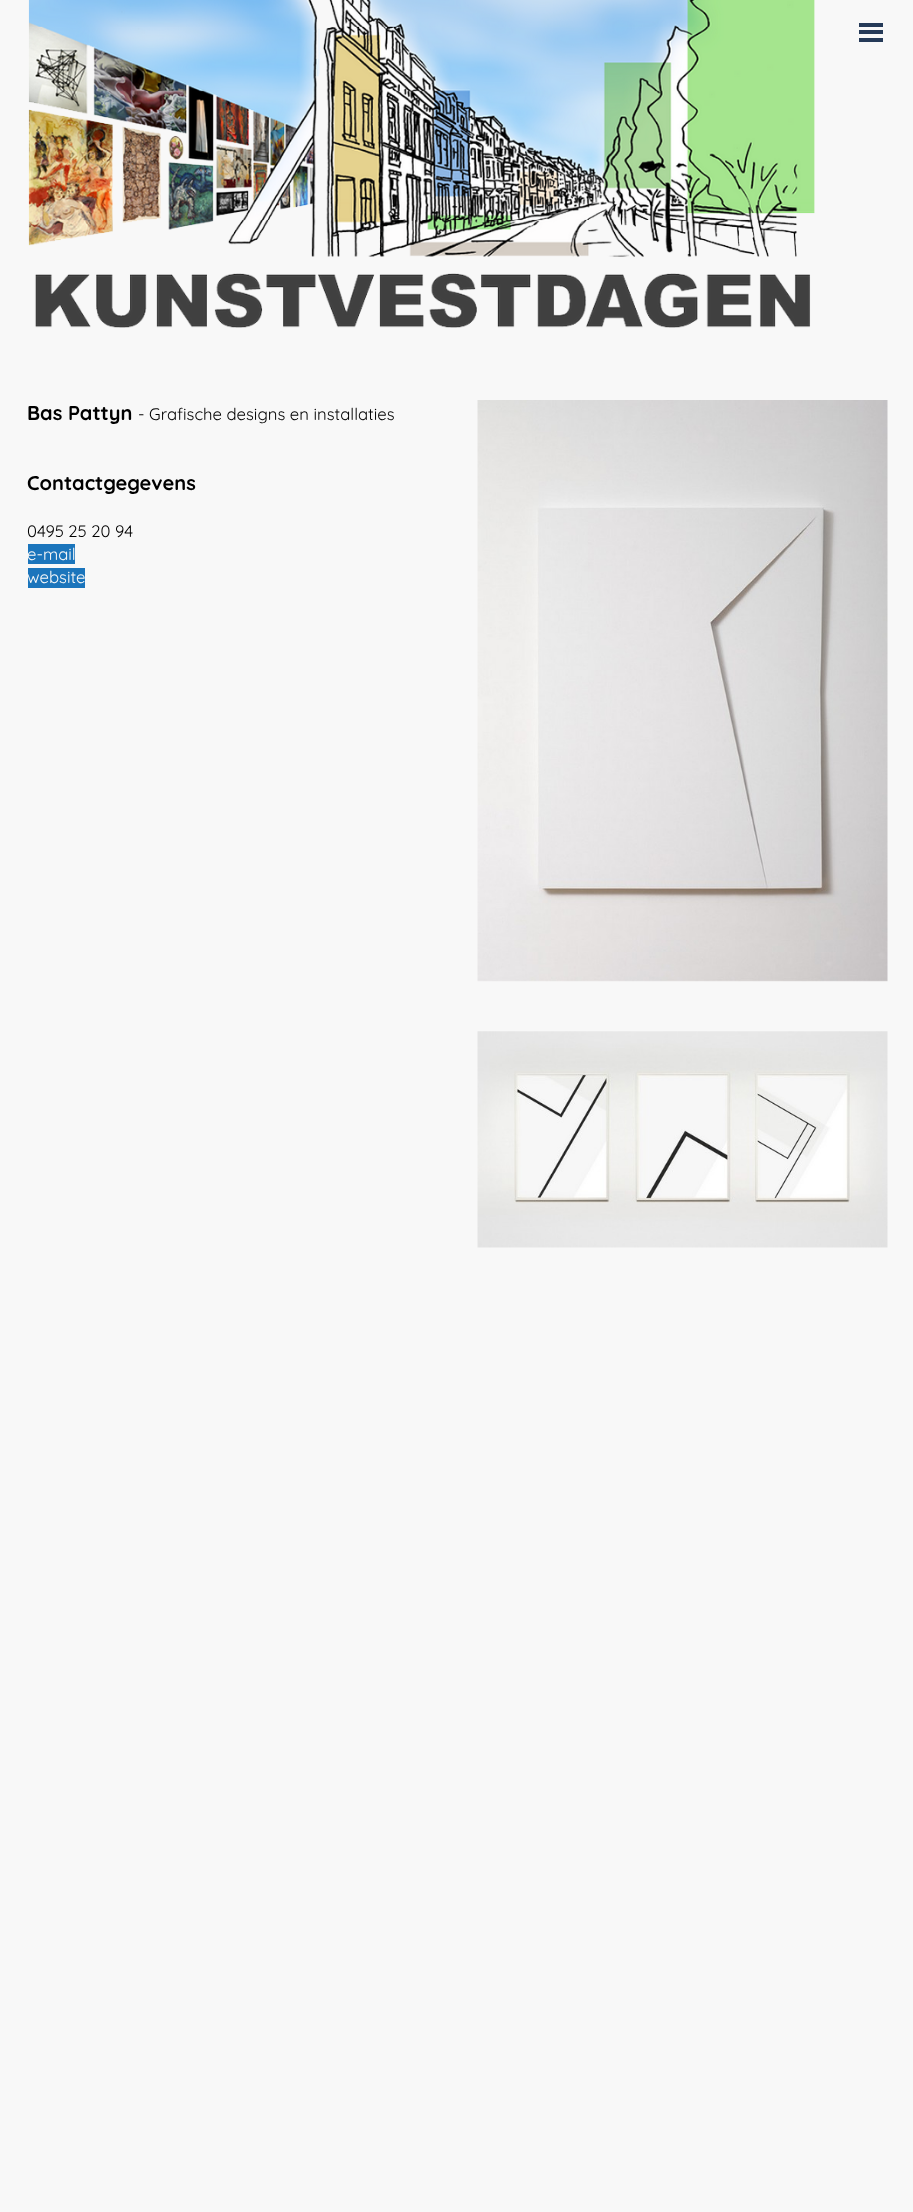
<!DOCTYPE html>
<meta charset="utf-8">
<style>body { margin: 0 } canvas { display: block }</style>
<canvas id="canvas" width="913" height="2212"></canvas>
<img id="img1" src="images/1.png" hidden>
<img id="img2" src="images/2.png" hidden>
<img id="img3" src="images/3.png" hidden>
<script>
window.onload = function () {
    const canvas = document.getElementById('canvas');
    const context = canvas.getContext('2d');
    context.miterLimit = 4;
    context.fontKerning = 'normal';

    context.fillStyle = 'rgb(248, 248, 248)';
    context.fillRect(0, 0, 913, 2212);
    context.drawImage(document.getElementById('img1'), 28, 0, 787, 328);
    context.fillStyle = 'rgb(37, 58, 88)';
    context.fillRect(859, 23, 24, 4);
    context.fillRect(859, 30, 24, 4);
    context.fillRect(859, 38, 24, 4);
    context.fillStyle = 'rgb(27, 117, 188)';
    context.fillRect(28, 544, 47, 20);
    context.fillRect(28, 568, 57, 20);
    context.drawImage(document.getElementById('img2'), 477, 400, 411, 582);
    context.drawImage(document.getElementById('img3'), 477, 1031, 411, 217);
    context.font = 'bold 20px Quicksand';
    context.fillStyle = 'rgb(0, 0, 0)';
    context.fillText('Bas Pattyn', 27, 420);
    context.font = '16.7px Quicksand';
    context.fillText('- Grafische designs en installaties', 138, 420);
    context.font = 'bold 20px Quicksand';
    context.fillText('Contactgegevens', 27, 490);
    context.font = '16.7px Quicksand';
    context.fillText('0495 25 20 94', 27, 537);
    context.fillStyle = 'rgb(248, 248, 248)';
    context.fillText('e-mail', 27, 560);
    context.fillText('website', 27, 583);
};
</script>
